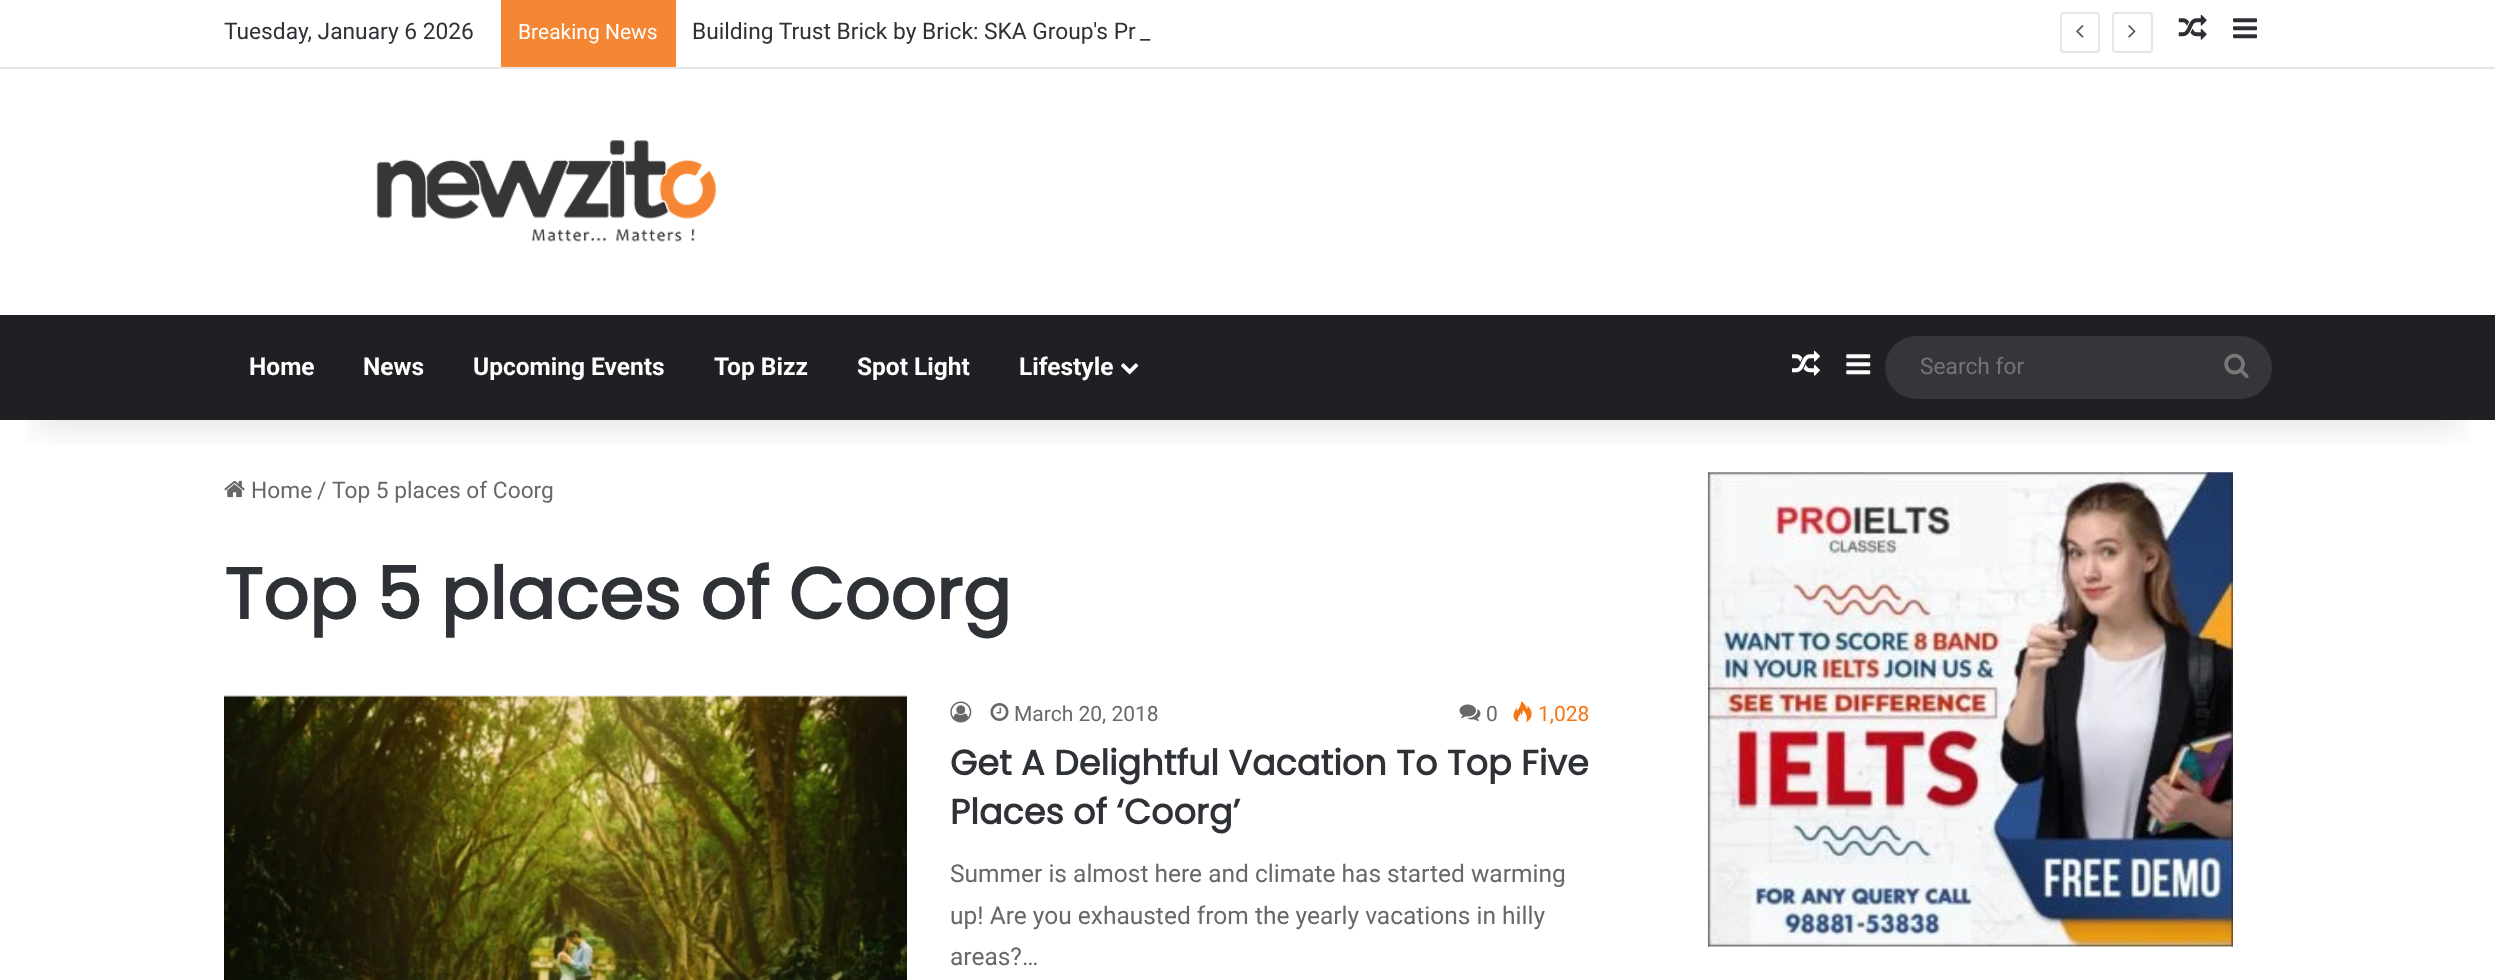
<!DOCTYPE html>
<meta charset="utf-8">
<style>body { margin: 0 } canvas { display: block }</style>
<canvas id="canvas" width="2495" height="980"></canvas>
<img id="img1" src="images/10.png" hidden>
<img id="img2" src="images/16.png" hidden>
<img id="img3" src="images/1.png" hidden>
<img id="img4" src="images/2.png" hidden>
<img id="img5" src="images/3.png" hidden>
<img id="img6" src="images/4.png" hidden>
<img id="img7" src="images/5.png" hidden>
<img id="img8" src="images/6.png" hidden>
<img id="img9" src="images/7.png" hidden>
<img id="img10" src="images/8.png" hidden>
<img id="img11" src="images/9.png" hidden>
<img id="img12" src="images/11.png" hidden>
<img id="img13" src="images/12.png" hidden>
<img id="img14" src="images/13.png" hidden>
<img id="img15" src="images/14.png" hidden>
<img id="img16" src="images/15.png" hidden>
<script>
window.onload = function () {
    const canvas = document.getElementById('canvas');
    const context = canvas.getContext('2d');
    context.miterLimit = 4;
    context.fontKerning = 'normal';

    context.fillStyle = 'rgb(255, 255, 255)';
    context.fillRect(0, 0, 2495, 980);
    context.drawImage(document.getElementById('img1'), 224, 480, 21, 18);
    context.drawImage(document.getElementById('img2'), 1708, 472, 525, 475);
    context.save();
    context.beginPath();
    context.rect(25, 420, 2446, 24);
    context.clip();
    context.fillStyle = 'rgba(0, 0, 0, 0.1)';
    context.filter = 'blur(17.5px)';
    context.beginPath();
    context.rect(35, 75, 2426, 354);
    context.fill();
    context.filter = 'none';
    context.restore();
    context.fillStyle = 'rgb(230, 230, 230)';
    context.fillRect(0, 67, 2495, 2);
    context.fillStyle = 'rgb(245, 134, 52)';
    context.fillRect(501, 0, 175, 67);
    context.beginPath();
    context.roundRect(2061, 13, 38, 39, 3);
    context.strokeStyle = 'rgb(230, 230, 230)';
    context.lineWidth = 2;
    context.stroke();
    context.drawImage(document.getElementById('img3'), 2076, 25, 8, 13);
    context.beginPath();
    context.roundRect(2113, 13, 39, 39, 3);
    context.stroke();
    context.drawImage(document.getElementById('img4'), 2128, 25, 8, 13);
    context.drawImage(document.getElementById('img5'), 2178, 14, 29, 26);
    context.drawImage(document.getElementById('img6'), 2233, 18, 24, 21);
    context.drawImage(document.getElementById('img7'), 376, 140, 340, 102);
    context.fillStyle = 'rgb(31, 32, 36)';
    context.fillRect(0, 315, 2495, 105);
    context.drawImage(document.getElementById('img8'), 1121, 363, 18, 12);
    context.drawImage(document.getElementById('img9'), 1792, 350, 28, 26);
    context.drawImage(document.getElementById('img10'), 1846, 354, 25, 21);
    context.fillStyle = 'rgb(53, 54, 58)';
    context.beginPath();
    context.roundRect(1885, 336, 387, 63, 31.5);
    context.fill();
    context.drawImage(document.getElementById('img11'), 2224, 353, 25, 26);
    context.drawImage(document.getElementById('img12'), 224, 695, 683, 285);
    context.drawImage(document.getElementById('img13'), 950, 701, 22, 22);
    context.drawImage(document.getElementById('img14'), 990, 703, 19, 18);
    context.drawImage(document.getElementById('img15'), 1459, 704, 22, 17);
    context.drawImage(document.getElementById('img16'), 1513, 701, 19, 22);
    context.font = '22.75px Roboto';
    context.fillStyle = 'rgb(46, 49, 54)';
    context.fillText('Tuesday, January 6 2026', 224, 39);
    context.font = '21px Roboto';
    context.fillStyle = 'rgb(255, 255, 255)';
    context.fillText('Breaking News', 518, 39);
    context.font = '22.75px Roboto';
    context.fillStyle = 'rgb(46, 49, 54)';
    context.fillText('Building Trust Brick by Brick: SKA Group\'s Pr', 692, 39);
    context.fillText('_', 1140, 39);
    context.font = 'bold 24.5px Roboto';
    context.fillStyle = 'rgb(255, 255, 255)';
    context.fillText('Home', 249, 375);
    context.fillText('News', 363, 375);
    context.fillText('Upcoming Events', 473, 375);
    context.fillText('Top Bizz', 714, 375);
    context.fillText('Spot Light', 857, 375);
    context.fillText('Lifestyle', 1019, 375);
    context.font = '22.75px Roboto';
    context.fillStyle = 'rgb(117, 117, 117)';
    context.fillText('Search for', 1920, 374);
    context.fillStyle = 'rgb(104, 104, 104)';
    context.fillText('Home', 251, 498);
    context.fillText('/', 317, 498);
    context.fillText('Top 5 places of Coorg', 332, 498);
    context.font = 'bold 71.75px Poppins';
    context.fillStyle = 'rgb(46, 49, 54)';
    context.fillText('Top 5 places of Coorg', 224, 619);
    context.font = '21px Roboto';
    context.fillStyle = 'rgb(104, 104, 104)';
    context.fillText('March 20, 2018', 1014, 721);
    context.fillText('0', 1486, 721);
    context.fillStyle = 'rgb(244, 118, 20)';
    context.fillText('1,028', 1538, 721);
    context.font = 'bold 35px Poppins';
    context.fillStyle = 'rgb(46, 49, 54)';
    context.fillText('Get A Delightful Vacation To Top Five', 950, 775);
    context.fillText('Places of ‘Coorg’', 950, 824);
    context.font = '24.5px Roboto';
    context.fillStyle = 'rgb(104, 104, 104)';
    context.fillText('Summer is almost here and climate has started warming', 950, 882);
    context.fillText('up! Are you exhausted from the yearly vacations in hilly', 950, 924);
    context.fillText('areas?…', 950, 965);
};
</script>
